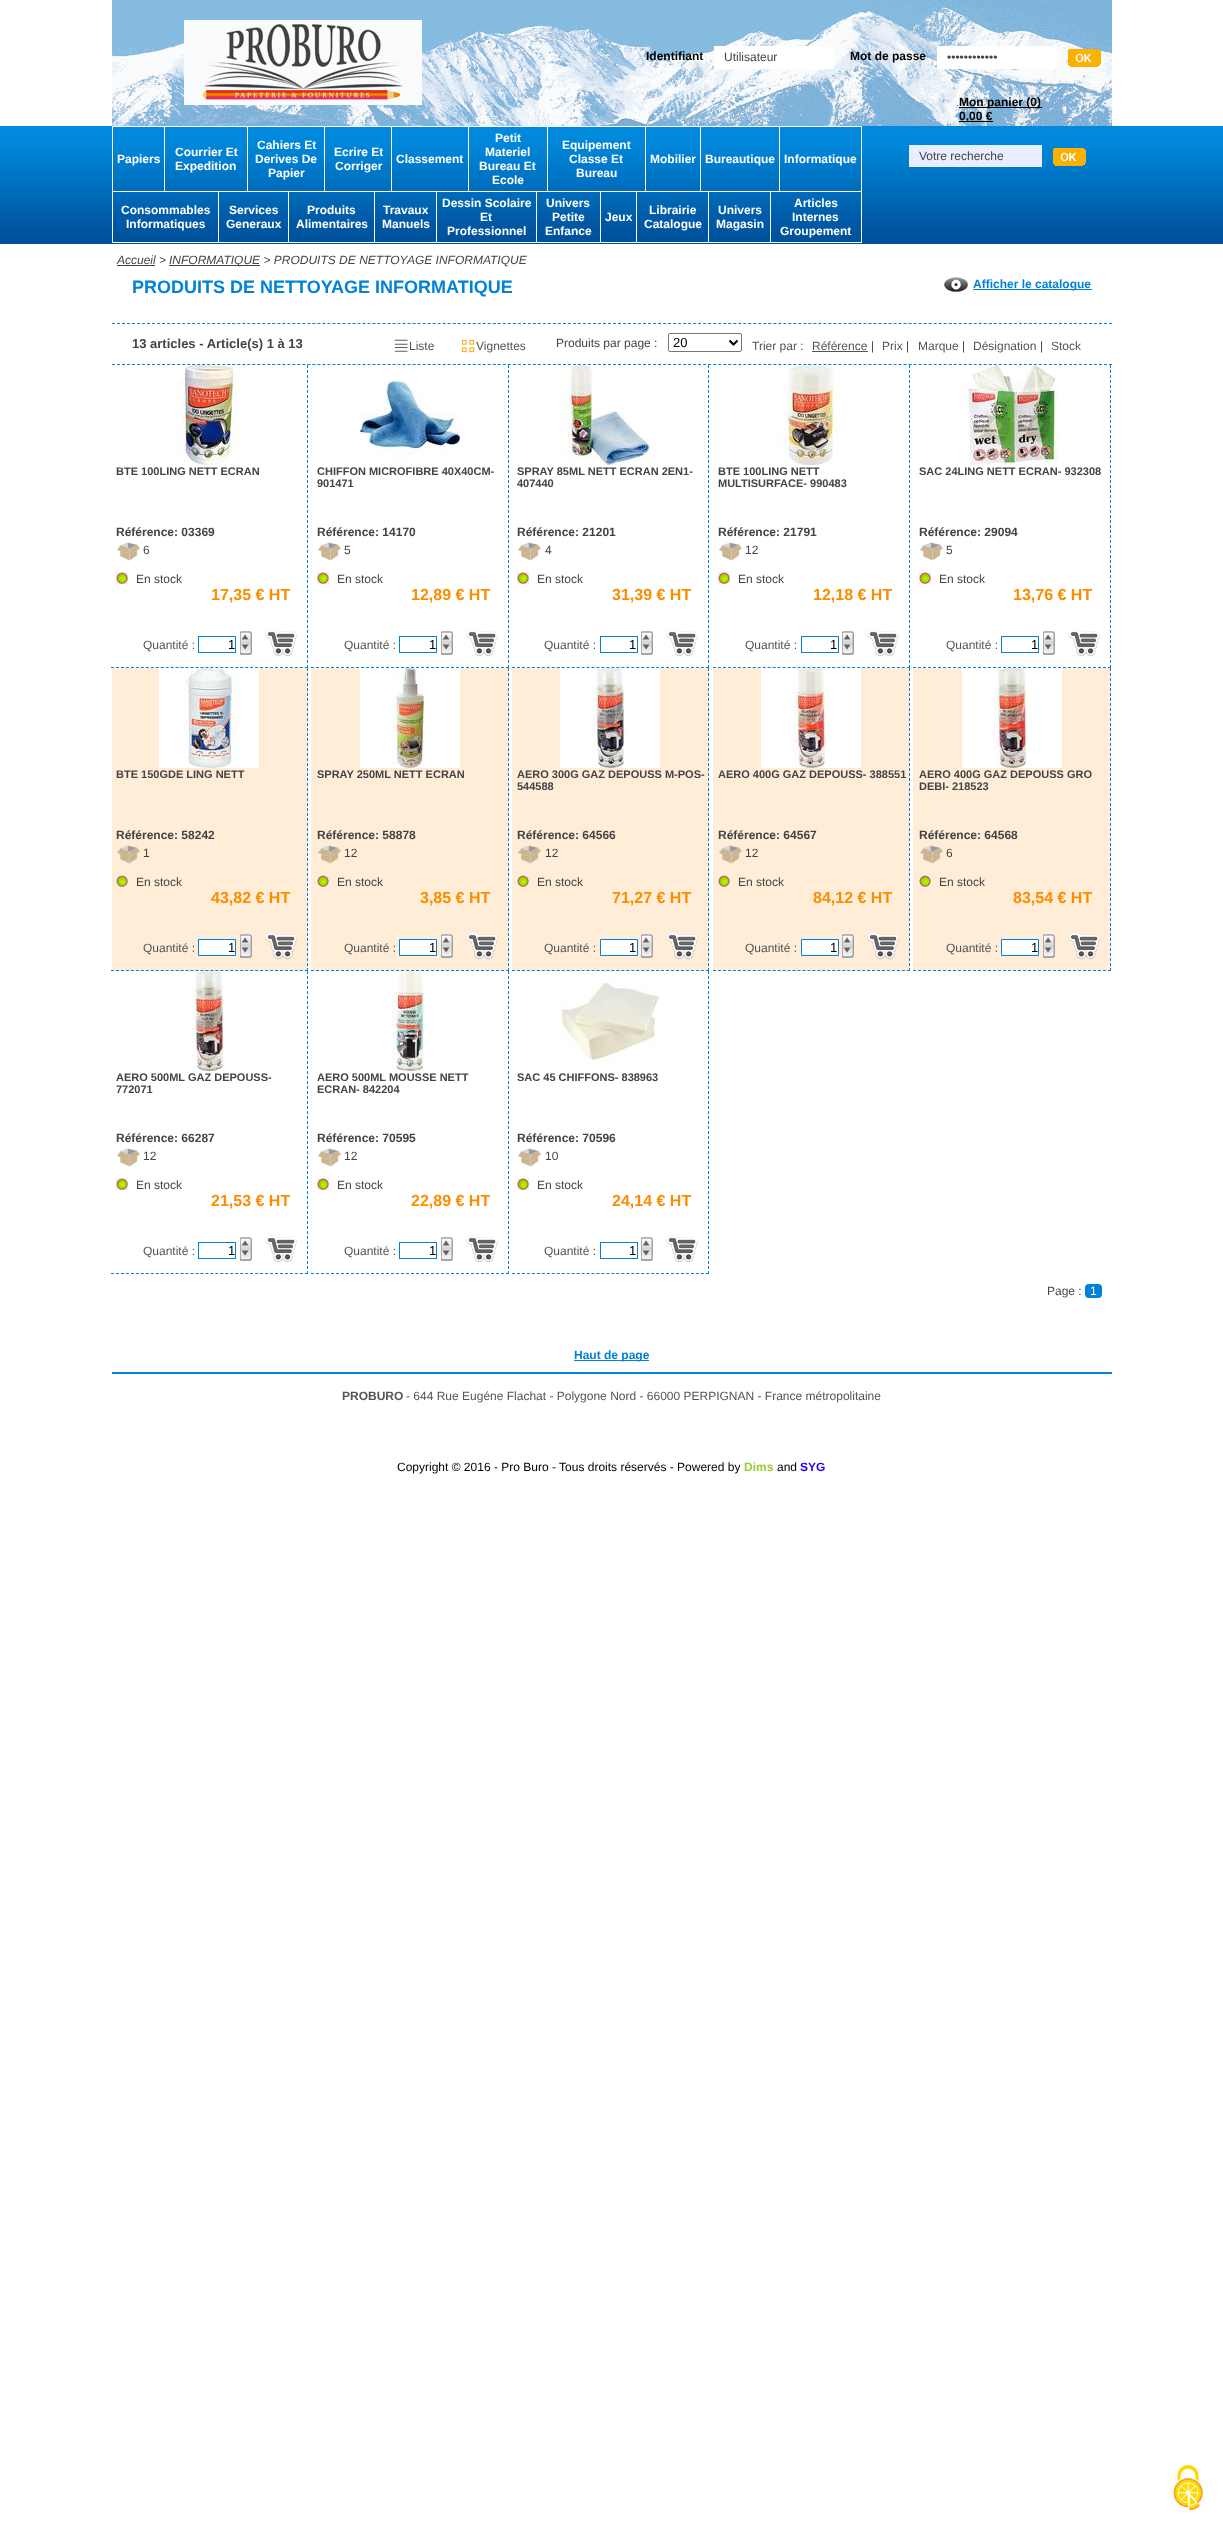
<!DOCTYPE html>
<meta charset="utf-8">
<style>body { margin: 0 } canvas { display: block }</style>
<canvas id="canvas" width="1223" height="2523"></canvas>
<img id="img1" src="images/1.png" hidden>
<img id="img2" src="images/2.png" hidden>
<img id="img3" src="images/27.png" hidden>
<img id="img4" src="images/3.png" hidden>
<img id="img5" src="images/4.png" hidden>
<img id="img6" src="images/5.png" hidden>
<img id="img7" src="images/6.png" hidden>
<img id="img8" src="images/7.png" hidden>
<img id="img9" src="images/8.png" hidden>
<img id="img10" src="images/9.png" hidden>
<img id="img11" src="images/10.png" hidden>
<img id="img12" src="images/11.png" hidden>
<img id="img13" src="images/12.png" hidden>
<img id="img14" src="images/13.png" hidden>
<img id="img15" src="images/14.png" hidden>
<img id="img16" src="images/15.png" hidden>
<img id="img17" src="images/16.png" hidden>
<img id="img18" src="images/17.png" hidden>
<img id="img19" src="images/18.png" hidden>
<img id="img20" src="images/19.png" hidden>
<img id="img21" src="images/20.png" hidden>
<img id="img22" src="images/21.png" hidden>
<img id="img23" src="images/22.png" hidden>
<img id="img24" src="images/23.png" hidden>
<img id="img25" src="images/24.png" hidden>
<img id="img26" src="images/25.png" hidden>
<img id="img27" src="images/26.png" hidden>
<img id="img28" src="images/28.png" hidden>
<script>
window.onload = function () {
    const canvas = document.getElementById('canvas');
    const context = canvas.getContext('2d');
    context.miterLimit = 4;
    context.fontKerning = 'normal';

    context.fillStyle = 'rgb(255, 255, 255)';
    context.fillRect(0, 0, 1223, 2523);
    context.drawImage(document.getElementById('img1'), 112, 0, 1000, 126);
    context.fillRect(714, 46, 120, 23);
    context.fillRect(937, 46, 120, 23);
    context.drawImage(document.getElementById('img2'), 1068, 49, 33, 18);
    context.fillStyle = 'rgb(0, 0, 0)';
    context.fillRect(959, 107, 83, 1);
    context.fillRect(959, 121, 34, 1);
    context.drawImage(document.getElementById('img3'), 0, 126, 1223, 118);
    context.fillStyle = 'rgb(255, 255, 255)';
    context.fillRect(112, 126, 750, 1);
    context.fillRect(861, 126, 1, 117);
    context.fillRect(779, 191, 83, 1);
    context.fillRect(779, 126, 1, 66);
    context.fillRect(700, 191, 80, 1);
    context.fillRect(700, 126, 1, 66);
    context.fillRect(645, 191, 56, 1);
    context.fillRect(645, 126, 1, 66);
    context.fillRect(547, 191, 99, 1);
    context.fillRect(547, 126, 1, 66);
    context.fillRect(468, 191, 80, 1);
    context.fillRect(468, 126, 1, 66);
    context.fillRect(391, 191, 78, 1);
    context.fillRect(391, 126, 1, 66);
    context.fillRect(324, 191, 68, 1);
    context.fillRect(324, 126, 1, 66);
    context.fillRect(247, 191, 78, 1);
    context.fillRect(247, 126, 1, 66);
    context.fillRect(164, 191, 84, 1);
    context.fillRect(164, 126, 1, 66);
    context.fillRect(112, 191, 53, 1);
    context.fillRect(112, 126, 1, 66);
    context.fillRect(770, 242, 92, 1);
    context.fillRect(770, 192, 1, 51);
    context.fillRect(708, 242, 63, 1);
    context.fillRect(708, 192, 1, 51);
    context.fillRect(636, 242, 73, 1);
    context.fillRect(636, 192, 1, 51);
    context.fillRect(600, 242, 37, 1);
    context.fillRect(600, 192, 1, 51);
    context.fillRect(536, 242, 65, 1);
    context.fillRect(536, 192, 1, 51);
    context.fillRect(436, 242, 101, 1);
    context.fillRect(436, 192, 1, 51);
    context.fillRect(374, 242, 63, 1);
    context.fillRect(374, 192, 1, 51);
    context.fillRect(288, 242, 87, 1);
    context.fillRect(288, 192, 1, 51);
    context.fillRect(218, 242, 71, 1);
    context.fillRect(218, 192, 1, 51);
    context.fillRect(112, 242, 107, 1);
    context.fillRect(112, 192, 1, 51);
    context.fillStyle = 'rgb(232, 238, 255)';
    context.fillRect(909, 145, 133, 22);
    context.drawImage(document.getElementById('img4'), 1053, 148, 33, 18);
    context.fillStyle = 'rgb(68, 68, 68)';
    context.fillRect(117, 265, 38, 1);
    context.fillRect(169, 265, 91, 1);
    context.drawImage(document.getElementById('img5'), 944, 277, 24, 15);
    context.fillStyle = 'rgb(0, 131, 214)';
    context.fillRect(973, 289, 119, 1);
    context.beginPath();
    context.moveTo(112, 323.5);
    context.lineTo(1112, 323.5);
    context.strokeStyle = 'rgb(0, 131, 214)';
    context.setLineDash([3, 2.01]);
    context.stroke();
    context.beginPath();
    context.moveTo(112, 364.5);
    context.lineTo(1112, 364.5);
    context.stroke();
    context.drawImage(document.getElementById('img6'), 394, 339, 14, 13);
    context.drawImage(document.getElementById('img7'), 461, 339, 14, 14);
    context.beginPath();
    context.roundRect(668.5, 333.5, 73, 18, 1.5);
    context.strokeStyle = 'rgb(118, 118, 118)';
    context.setLineDash([]);
    context.stroke();
    context.beginPath();
    context.moveTo(729.5, 340.5);
    context.lineTo(733.5, 344.5);
    context.lineTo(737.5, 340.5);
    context.strokeStyle = 'rgb(0, 0, 0)';
    context.lineWidth = 2;
    context.stroke();
    context.fillStyle = 'rgb(84, 84, 84)';
    context.fillRect(812, 351, 56, 1);
    context.beginPath();
    context.moveTo(307.5, 365);
    context.lineTo(307.5, 668);
    context.strokeStyle = 'rgb(0, 131, 214)';
    context.lineWidth = 1;
    context.setLineDash([3, 2]);
    context.stroke();
    context.beginPath();
    context.moveTo(111, 667.5);
    context.lineTo(308, 667.5);
    context.setLineDash([3, 1.97]);
    context.stroke();
    context.drawImage(document.getElementById('img8'), 175, 365, 64, 100);
    context.drawImage(document.getElementById('img9'), 117, 542, 23, 19);
    context.drawImage(document.getElementById('img10'), 116, 572, 12, 12);
    context.setLineDash([]);
    context.strokeRect(198.5, 636.5, 37, 16);
    context.drawImage(document.getElementById('img11'), 240, 631, 12, 12);
    context.drawImage(document.getElementById('img12'), 240, 643, 12, 12);
    context.drawImage(document.getElementById('img13'), 265, 629, 32, 28);
    context.beginPath();
    context.moveTo(508.5, 365);
    context.lineTo(508.5, 668);
    context.setLineDash([3, 2]);
    context.stroke();
    context.beginPath();
    context.moveTo(311, 667.5);
    context.lineTo(509, 667.5);
    context.stroke();
    context.drawImage(document.getElementById('img14'), 360, 380, 100, 81);
    context.drawImage(document.getElementById('img9'), 318, 542, 23, 19);
    context.drawImage(document.getElementById('img10'), 317, 572, 12, 12);
    context.setLineDash([]);
    context.strokeRect(399.5, 636.5, 37, 16);
    context.drawImage(document.getElementById('img11'), 441, 631, 12, 12);
    context.drawImage(document.getElementById('img12'), 441, 643, 12, 12);
    context.drawImage(document.getElementById('img13'), 466, 629, 32, 28);
    context.beginPath();
    context.moveTo(708.5, 365);
    context.lineTo(708.5, 668);
    context.setLineDash([3, 2]);
    context.stroke();
    context.beginPath();
    context.moveTo(512, 667.5);
    context.lineTo(709, 667.5);
    context.setLineDash([3, 1.97]);
    context.stroke();
    context.drawImage(document.getElementById('img15'), 560, 365, 96, 100);
    context.drawImage(document.getElementById('img9'), 518, 542, 23, 19);
    context.drawImage(document.getElementById('img10'), 517, 572, 12, 12);
    context.setLineDash([]);
    context.strokeRect(600.5, 636.5, 37, 16);
    context.drawImage(document.getElementById('img11'), 641, 631, 12, 12);
    context.drawImage(document.getElementById('img12'), 641, 643, 12, 12);
    context.drawImage(document.getElementById('img13'), 666, 629, 32, 28);
    context.beginPath();
    context.moveTo(909.5, 365);
    context.lineTo(909.5, 668);
    context.setLineDash([3, 2]);
    context.stroke();
    context.beginPath();
    context.moveTo(713, 667.5);
    context.lineTo(910, 667.5);
    context.setLineDash([3, 1.97]);
    context.stroke();
    context.drawImage(document.getElementById('img16'), 777, 365, 64, 100);
    context.drawImage(document.getElementById('img9'), 719, 542, 23, 19);
    context.drawImage(document.getElementById('img10'), 718, 572, 12, 12);
    context.setLineDash([]);
    context.strokeRect(801.5, 636.5, 37, 16);
    context.drawImage(document.getElementById('img11'), 842, 631, 12, 12);
    context.drawImage(document.getElementById('img12'), 842, 643, 12, 12);
    context.drawImage(document.getElementById('img13'), 867, 629, 32, 28);
    context.beginPath();
    context.moveTo(1110.5, 365);
    context.lineTo(1110.5, 668);
    context.setLineDash([3, 2]);
    context.stroke();
    context.beginPath();
    context.moveTo(913, 667.5);
    context.lineTo(1111, 667.5);
    context.stroke();
    context.drawImage(document.getElementById('img17'), 962, 365, 96, 100);
    context.drawImage(document.getElementById('img9'), 920, 542, 23, 19);
    context.drawImage(document.getElementById('img10'), 919, 572, 12, 12);
    context.setLineDash([]);
    context.strokeRect(1001.5, 636.5, 37, 16);
    context.drawImage(document.getElementById('img11'), 1043, 631, 12, 12);
    context.drawImage(document.getElementById('img12'), 1043, 643, 12, 12);
    context.drawImage(document.getElementById('img13'), 1068, 629, 32, 28);
    context.fillStyle = 'rgb(255, 237, 216)';
    context.fillRect(112, 668, 196, 303);
    context.beginPath();
    context.moveTo(307.5, 668);
    context.lineTo(307.5, 971);
    context.setLineDash([3, 2]);
    context.stroke();
    context.beginPath();
    context.moveTo(111, 970.5);
    context.lineTo(308, 970.5);
    context.setLineDash([3, 1.97]);
    context.stroke();
    context.drawImage(document.getElementById('img18'), 159, 668, 100, 100);
    context.drawImage(document.getElementById('img19'), 117, 845, 23, 19);
    context.drawImage(document.getElementById('img10'), 116, 875, 12, 12);
    context.fillStyle = 'rgb(255, 255, 255)';
    context.beginPath();
    context.rect(198.5, 939.5, 37, 16);
    context.fill();
    context.setLineDash([]);
    context.stroke();
    context.drawImage(document.getElementById('img11'), 240, 934, 12, 12);
    context.drawImage(document.getElementById('img12'), 240, 946, 12, 12);
    context.drawImage(document.getElementById('img20'), 265, 932, 32, 28);
    context.fillStyle = 'rgb(255, 237, 216)';
    context.fillRect(311, 668, 198, 303);
    context.beginPath();
    context.moveTo(508.5, 668);
    context.lineTo(508.5, 971);
    context.setLineDash([3, 2]);
    context.stroke();
    context.beginPath();
    context.moveTo(311, 970.5);
    context.lineTo(509, 970.5);
    context.stroke();
    context.drawImage(document.getElementById('img21'), 360, 668, 100, 100);
    context.drawImage(document.getElementById('img19'), 318, 845, 23, 19);
    context.drawImage(document.getElementById('img10'), 317, 875, 12, 12);
    context.fillStyle = 'rgb(255, 255, 255)';
    context.beginPath();
    context.rect(399.5, 939.5, 37, 16);
    context.fill();
    context.setLineDash([]);
    context.stroke();
    context.drawImage(document.getElementById('img11'), 441, 934, 12, 12);
    context.drawImage(document.getElementById('img12'), 441, 946, 12, 12);
    context.drawImage(document.getElementById('img20'), 466, 932, 32, 28);
    context.fillStyle = 'rgb(255, 237, 216)';
    context.fillRect(512, 668, 197, 303);
    context.beginPath();
    context.moveTo(708.5, 668);
    context.lineTo(708.5, 971);
    context.setLineDash([3, 2]);
    context.stroke();
    context.beginPath();
    context.moveTo(512, 970.5);
    context.lineTo(709, 970.5);
    context.setLineDash([3, 1.97]);
    context.stroke();
    context.drawImage(document.getElementById('img22'), 560, 668, 100, 100);
    context.drawImage(document.getElementById('img19'), 518, 845, 23, 19);
    context.drawImage(document.getElementById('img10'), 517, 875, 12, 12);
    context.fillStyle = 'rgb(255, 255, 255)';
    context.beginPath();
    context.rect(600.5, 939.5, 37, 16);
    context.fill();
    context.setLineDash([]);
    context.stroke();
    context.drawImage(document.getElementById('img11'), 641, 934, 12, 12);
    context.drawImage(document.getElementById('img12'), 641, 946, 12, 12);
    context.drawImage(document.getElementById('img20'), 666, 932, 32, 28);
    context.fillStyle = 'rgb(255, 237, 216)';
    context.fillRect(713, 668, 197, 303);
    context.beginPath();
    context.moveTo(909.5, 668);
    context.lineTo(909.5, 971);
    context.setLineDash([3, 2]);
    context.stroke();
    context.beginPath();
    context.moveTo(713, 970.5);
    context.lineTo(910, 970.5);
    context.setLineDash([3, 1.97]);
    context.stroke();
    context.drawImage(document.getElementById('img23'), 761, 668, 100, 100);
    context.drawImage(document.getElementById('img19'), 719, 845, 23, 19);
    context.drawImage(document.getElementById('img10'), 718, 875, 12, 12);
    context.fillStyle = 'rgb(255, 255, 255)';
    context.beginPath();
    context.rect(801.5, 939.5, 37, 16);
    context.fill();
    context.setLineDash([]);
    context.stroke();
    context.drawImage(document.getElementById('img11'), 842, 934, 12, 12);
    context.drawImage(document.getElementById('img12'), 842, 946, 12, 12);
    context.drawImage(document.getElementById('img20'), 867, 932, 32, 28);
    context.fillStyle = 'rgb(255, 237, 216)';
    context.fillRect(913, 668, 198, 303);
    context.beginPath();
    context.moveTo(1110.5, 668);
    context.lineTo(1110.5, 971);
    context.setLineDash([3, 2]);
    context.stroke();
    context.beginPath();
    context.moveTo(913, 970.5);
    context.lineTo(1111, 970.5);
    context.stroke();
    context.drawImage(document.getElementById('img24'), 962, 668, 100, 100);
    context.drawImage(document.getElementById('img19'), 920, 845, 23, 19);
    context.drawImage(document.getElementById('img10'), 919, 875, 12, 12);
    context.fillStyle = 'rgb(255, 255, 255)';
    context.beginPath();
    context.rect(1001.5, 939.5, 37, 16);
    context.fill();
    context.setLineDash([]);
    context.stroke();
    context.drawImage(document.getElementById('img11'), 1043, 934, 12, 12);
    context.drawImage(document.getElementById('img12'), 1043, 946, 12, 12);
    context.drawImage(document.getElementById('img20'), 1068, 932, 32, 28);
    context.beginPath();
    context.moveTo(307.5, 971);
    context.lineTo(307.5, 1274);
    context.setLineDash([3, 2]);
    context.stroke();
    context.beginPath();
    context.moveTo(111, 1273.5);
    context.lineTo(308, 1273.5);
    context.setLineDash([3, 1.97]);
    context.stroke();
    context.drawImage(document.getElementById('img25'), 191, 971, 33, 100);
    context.drawImage(document.getElementById('img9'), 117, 1148, 23, 19);
    context.drawImage(document.getElementById('img10'), 116, 1178, 12, 12);
    context.setLineDash([]);
    context.strokeRect(198.5, 1242.5, 37, 16);
    context.drawImage(document.getElementById('img11'), 240, 1237, 12, 12);
    context.drawImage(document.getElementById('img12'), 240, 1249, 12, 12);
    context.drawImage(document.getElementById('img13'), 265, 1235, 32, 28);
    context.beginPath();
    context.moveTo(508.5, 971);
    context.lineTo(508.5, 1274);
    context.setLineDash([3, 2]);
    context.stroke();
    context.beginPath();
    context.moveTo(311, 1273.5);
    context.lineTo(509, 1273.5);
    context.stroke();
    context.drawImage(document.getElementById('img26'), 391, 971, 34, 100);
    context.drawImage(document.getElementById('img9'), 318, 1148, 23, 19);
    context.drawImage(document.getElementById('img10'), 317, 1178, 12, 12);
    context.setLineDash([]);
    context.strokeRect(399.5, 1242.5, 37, 16);
    context.drawImage(document.getElementById('img11'), 441, 1237, 12, 12);
    context.drawImage(document.getElementById('img12'), 441, 1249, 12, 12);
    context.drawImage(document.getElementById('img13'), 466, 1235, 32, 28);
    context.beginPath();
    context.moveTo(708.5, 971);
    context.lineTo(708.5, 1274);
    context.setLineDash([3, 2]);
    context.stroke();
    context.beginPath();
    context.moveTo(512, 1273.5);
    context.lineTo(709, 1273.5);
    context.setLineDash([3, 1.97]);
    context.stroke();
    context.drawImage(document.getElementById('img27'), 560, 980, 100, 86);
    context.drawImage(document.getElementById('img9'), 518, 1148, 23, 19);
    context.drawImage(document.getElementById('img10'), 517, 1178, 12, 12);
    context.setLineDash([]);
    context.strokeRect(600.5, 1242.5, 37, 16);
    context.drawImage(document.getElementById('img11'), 641, 1237, 12, 12);
    context.drawImage(document.getElementById('img12'), 641, 1249, 12, 12);
    context.drawImage(document.getElementById('img13'), 666, 1235, 32, 28);
    context.fillStyle = 'rgb(0, 131, 214)';
    context.beginPath();
    context.roundRect(1085, 1284, 17, 14, 4);
    context.fill();
    context.fillRect(574, 1360, 75, 1);
    context.fillRect(112, 1372, 1000, 2);
    context.drawImage(document.getElementById('img28'), 1173, 2465, 30, 46);
    context.font = 'bold 12px Liberation Sans';
    context.fillStyle = 'rgb(0, 0, 0)';
    context.fillText('Identifiant', 646, 60);
    context.font = '12px Liberation Sans';
    context.fillStyle = 'rgb(68, 68, 68)';
    context.fillText('Utilisateur', 724, 61);
    context.font = 'bold 12px Liberation Sans';
    context.fillStyle = 'rgb(0, 0, 0)';
    context.fillText('Mot de passe', 850, 60);
    context.font = '12px Liberation Sans';
    context.fillStyle = 'rgb(68, 68, 68)';
    context.fillText('••••••••••••', 947, 61);
    context.font = 'bold 12px Liberation Sans';
    context.fillStyle = 'rgb(0, 0, 0)';
    context.fillText('Mon panier (0)', 959, 106);
    context.fillText('0,00 €', 959, 120);
    context.fillStyle = 'rgb(255, 255, 255)';
    context.fillText('Papiers', 117, 163);
    context.fillText('Courrier Et', 175, 156);
    context.fillText('Expedition', 175, 170);
    context.fillText('Cahiers Et', 257, 149);
    context.fillText('Derives De', 255, 163);
    context.fillText('Papier', 268, 177);
    context.fillText('Ecrire Et', 334, 156);
    context.fillText('Corriger', 335, 170);
    context.fillText('Classement', 396, 163);
    context.fillText('Petit', 495, 142);
    context.fillText('Materiel', 485, 156);
    context.fillText('Bureau Et', 479, 170);
    context.fillText('Ecole', 492, 184);
    context.fillText('Equipement', 562, 149);
    context.fillText('Classe Et', 569, 163);
    context.fillText('Bureau', 576, 177);
    context.fillText('Mobilier', 650, 163);
    context.fillText('Bureautique', 705, 163);
    context.fillText('Informatique', 784, 163);
    context.fillText('Consommables', 121, 214);
    context.fillText('Informatiques', 126, 228);
    context.fillText('Services', 229, 214);
    context.fillText('Generaux', 226, 228);
    context.fillText('Produits', 307, 214);
    context.fillText('Alimentaires', 296, 228);
    context.fillText('Travaux', 383, 214);
    context.fillText('Manuels', 382, 228);
    context.fillText('Dessin Scolaire', 442, 207);
    context.fillText('Et', 480, 221);
    context.fillText('Professionnel', 447, 235);
    context.fillText('Univers', 546, 207);
    context.fillText('Petite', 552, 221);
    context.fillText('Enfance', 545, 235);
    context.fillText('Jeux', 605, 221);
    context.fillText('Librairie', 649, 214);
    context.fillText('Catalogue', 644, 228);
    context.fillText('Univers', 718, 214);
    context.fillText('Magasin', 716, 228);
    context.fillText('Articles', 794, 207);
    context.fillText('Internes', 792, 221);
    context.fillText('Groupement', 780, 235);
    context.font = '12px Liberation Sans';
    context.fillStyle = 'rgb(68, 68, 68)';
    context.fillText('Votre recherche', 919, 160);
    context.font = 'italic 12px Liberation Sans';
    context.fillText('Accueil >', 117, 264);
    context.fillText('INFORMATIQUE > PRODUITS DE NETTOYAGE INFORMATIQUE', 169, 264);
    context.font = 'bold 18px Liberation Sans';
    context.fillStyle = 'rgb(0, 131, 214)';
    context.fillText('PRODUITS DE NETTOYAGE INFORMATIQUE', 132, 293);
    context.font = 'bold 12px Liberation Sans';
    context.fillText('Afficher le catalogue', 973, 288);
    context.font = 'bold 13px Liberation Sans';
    context.fillStyle = 'rgb(68, 68, 68)';
    context.fillText('13 articles - Article(s) 1 à 13', 132, 348);
    context.font = '12px Liberation Sans';
    context.fillStyle = 'rgb(84, 84, 84)';
    context.fillText('Liste', 409, 350);
    context.fillText('Vignettes', 476, 350);
    context.fillStyle = 'rgb(68, 68, 68)';
    context.fillText('Produits par page :', 556, 347);
    context.font = '13px Liberation Sans';
    context.fillStyle = 'rgb(0, 0, 0)';
    context.fillText('20', 673, 347);
    context.font = '12px Liberation Sans';
    context.fillStyle = 'rgb(84, 84, 84)';
    context.fillText('Trier par :', 752, 350);
    context.fillText('Référence', 812, 350);
    context.fillStyle = 'rgb(68, 68, 68)';
    context.fillText('|', 871, 350);
    context.fillStyle = 'rgb(84, 84, 84)';
    context.fillText('Prix', 882, 350);
    context.fillStyle = 'rgb(68, 68, 68)';
    context.fillText('|', 906, 350);
    context.fillStyle = 'rgb(84, 84, 84)';
    context.fillText('Marque', 918, 350);
    context.fillStyle = 'rgb(68, 68, 68)';
    context.fillText('|', 962, 350);
    context.fillStyle = 'rgb(84, 84, 84)';
    context.fillText('Désignation', 973, 350);
    context.fillStyle = 'rgb(68, 68, 68)';
    context.fillText('|', 1040, 350);
    context.fillStyle = 'rgb(84, 84, 84)';
    context.fillText('Stock', 1051, 350);
    context.font = 'bold 11px Liberation Sans';
    context.fillStyle = 'rgb(68, 68, 68)';
    context.fillText('BTE 100LING NETT ECRAN', 116, 475);
    context.font = 'bold 12px Liberation Sans';
    context.fillText('Référence: 03369', 116, 536);
    context.font = '12px Liberation Sans';
    context.fillText('6', 143, 554);
    context.fillText('En stock', 136, 583);
    context.font = 'bold 16px Liberation Sans';
    context.fillStyle = 'rgb(251, 141, 0)';
    context.fillText('17,35 € HT', 211, 600);
    context.font = '12px Liberation Sans';
    context.fillStyle = 'rgb(84, 84, 84)';
    context.fillText('Quantité :', 143, 649);
    context.font = '13px Liberation Sans';
    context.fillStyle = 'rgb(0, 0, 0)';
    context.fillText('1', 228, 649);
    context.font = 'bold 11px Liberation Sans';
    context.fillStyle = 'rgb(68, 68, 68)';
    context.fillText('CHIFFON MICROFIBRE 40X40CM-', 317, 475);
    context.fillText('901471', 317, 487);
    context.font = 'bold 12px Liberation Sans';
    context.fillText('Référence: 14170', 317, 536);
    context.font = '12px Liberation Sans';
    context.fillText('5', 344, 554);
    context.fillText('En stock', 337, 583);
    context.font = 'bold 16px Liberation Sans';
    context.fillStyle = 'rgb(251, 141, 0)';
    context.fillText('12,89 € HT', 411, 600);
    context.font = '12px Liberation Sans';
    context.fillStyle = 'rgb(84, 84, 84)';
    context.fillText('Quantité :', 344, 649);
    context.font = '13px Liberation Sans';
    context.fillStyle = 'rgb(0, 0, 0)';
    context.fillText('1', 429, 649);
    context.font = 'bold 11px Liberation Sans';
    context.fillStyle = 'rgb(68, 68, 68)';
    context.fillText('SPRAY 85ML NETT ECRAN 2EN1-', 517, 475);
    context.fillText('407440', 517, 487);
    context.font = 'bold 12px Liberation Sans';
    context.fillText('Référence: 21201', 517, 536);
    context.font = '12px Liberation Sans';
    context.fillText('4', 545, 554);
    context.fillText('En stock', 537, 583);
    context.font = 'bold 16px Liberation Sans';
    context.fillStyle = 'rgb(251, 141, 0)';
    context.fillText('31,39 € HT', 612, 600);
    context.font = '12px Liberation Sans';
    context.fillStyle = 'rgb(84, 84, 84)';
    context.fillText('Quantité :', 544, 649);
    context.font = '13px Liberation Sans';
    context.fillStyle = 'rgb(0, 0, 0)';
    context.fillText('1', 629, 649);
    context.font = 'bold 11px Liberation Sans';
    context.fillStyle = 'rgb(68, 68, 68)';
    context.fillText('BTE 100LING NETT', 718, 475);
    context.fillText('MULTISURFACE- 990483', 718, 487);
    context.font = 'bold 12px Liberation Sans';
    context.fillText('Référence: 21791', 718, 536);
    context.font = '12px Liberation Sans';
    context.fillText('12', 745, 554);
    context.fillText('En stock', 738, 583);
    context.font = 'bold 16px Liberation Sans';
    context.fillStyle = 'rgb(251, 141, 0)';
    context.fillText('12,18 € HT', 813, 600);
    context.font = '12px Liberation Sans';
    context.fillStyle = 'rgb(84, 84, 84)';
    context.fillText('Quantité :', 745, 649);
    context.font = '13px Liberation Sans';
    context.fillStyle = 'rgb(0, 0, 0)';
    context.fillText('1', 830, 649);
    context.font = 'bold 11px Liberation Sans';
    context.fillStyle = 'rgb(68, 68, 68)';
    context.fillText('SAC 24LING NETT ECRAN- 932308', 919, 475);
    context.font = 'bold 12px Liberation Sans';
    context.fillText('Référence: 29094', 919, 536);
    context.font = '12px Liberation Sans';
    context.fillText('5', 946, 554);
    context.fillText('En stock', 939, 583);
    context.font = 'bold 16px Liberation Sans';
    context.fillStyle = 'rgb(251, 141, 0)';
    context.fillText('13,76 € HT', 1013, 600);
    context.font = '12px Liberation Sans';
    context.fillStyle = 'rgb(84, 84, 84)';
    context.fillText('Quantité :', 946, 649);
    context.font = '13px Liberation Sans';
    context.fillStyle = 'rgb(0, 0, 0)';
    context.fillText('1', 1031, 649);
    context.font = 'bold 11px Liberation Sans';
    context.fillStyle = 'rgb(68, 68, 68)';
    context.fillText('BTE 150GDE LING NETT', 116, 778);
    context.font = 'bold 12px Liberation Sans';
    context.fillText('Référence: 58242', 116, 839);
    context.font = '12px Liberation Sans';
    context.fillText('1', 143, 857);
    context.fillText('En stock', 136, 886);
    context.font = 'bold 16px Liberation Sans';
    context.fillStyle = 'rgb(251, 141, 0)';
    context.fillText('43,82 € HT', 211, 903);
    context.font = '12px Liberation Sans';
    context.fillStyle = 'rgb(84, 84, 84)';
    context.fillText('Quantité :', 143, 952);
    context.font = '13px Liberation Sans';
    context.fillStyle = 'rgb(0, 0, 0)';
    context.fillText('1', 228, 952);
    context.font = 'bold 11px Liberation Sans';
    context.fillStyle = 'rgb(68, 68, 68)';
    context.fillText('SPRAY 250ML NETT ECRAN', 317, 778);
    context.font = 'bold 12px Liberation Sans';
    context.fillText('Référence: 58878', 317, 839);
    context.font = '12px Liberation Sans';
    context.fillText('12', 344, 857);
    context.fillText('En stock', 337, 886);
    context.font = 'bold 16px Liberation Sans';
    context.fillStyle = 'rgb(251, 141, 0)';
    context.fillText('3,85 € HT', 420, 903);
    context.font = '12px Liberation Sans';
    context.fillStyle = 'rgb(84, 84, 84)';
    context.fillText('Quantité :', 344, 952);
    context.font = '13px Liberation Sans';
    context.fillStyle = 'rgb(0, 0, 0)';
    context.fillText('1', 429, 952);
    context.font = 'bold 11px Liberation Sans';
    context.fillStyle = 'rgb(68, 68, 68)';
    context.fillText('AERO 300G GAZ DEPOUSS M-POS-', 517, 778);
    context.fillText('544588', 517, 790);
    context.font = 'bold 12px Liberation Sans';
    context.fillText('Référence: 64566', 517, 839);
    context.font = '12px Liberation Sans';
    context.fillText('12', 545, 857);
    context.fillText('En stock', 537, 886);
    context.font = 'bold 16px Liberation Sans';
    context.fillStyle = 'rgb(251, 141, 0)';
    context.fillText('71,27 € HT', 612, 903);
    context.font = '12px Liberation Sans';
    context.fillStyle = 'rgb(84, 84, 84)';
    context.fillText('Quantité :', 544, 952);
    context.font = '13px Liberation Sans';
    context.fillStyle = 'rgb(0, 0, 0)';
    context.fillText('1', 629, 952);
    context.font = 'bold 11px Liberation Sans';
    context.fillStyle = 'rgb(68, 68, 68)';
    context.fillText('AERO 400G GAZ DEPOUSS- 388551', 718, 778);
    context.font = 'bold 12px Liberation Sans';
    context.fillText('Référence: 64567', 718, 839);
    context.font = '12px Liberation Sans';
    context.fillText('12', 745, 857);
    context.fillText('En stock', 738, 886);
    context.font = 'bold 16px Liberation Sans';
    context.fillStyle = 'rgb(251, 141, 0)';
    context.fillText('84,12 € HT', 813, 903);
    context.font = '12px Liberation Sans';
    context.fillStyle = 'rgb(84, 84, 84)';
    context.fillText('Quantité :', 745, 952);
    context.font = '13px Liberation Sans';
    context.fillStyle = 'rgb(0, 0, 0)';
    context.fillText('1', 830, 952);
    context.font = 'bold 11px Liberation Sans';
    context.fillStyle = 'rgb(68, 68, 68)';
    context.fillText('AERO 400G GAZ DEPOUSS GRO', 919, 778);
    context.fillText('DEBI- 218523', 919, 790);
    context.font = 'bold 12px Liberation Sans';
    context.fillText('Référence: 64568', 919, 839);
    context.font = '12px Liberation Sans';
    context.fillText('6', 946, 857);
    context.fillText('En stock', 939, 886);
    context.font = 'bold 16px Liberation Sans';
    context.fillStyle = 'rgb(251, 141, 0)';
    context.fillText('83,54 € HT', 1013, 903);
    context.font = '12px Liberation Sans';
    context.fillStyle = 'rgb(84, 84, 84)';
    context.fillText('Quantité :', 946, 952);
    context.font = '13px Liberation Sans';
    context.fillStyle = 'rgb(0, 0, 0)';
    context.fillText('1', 1031, 952);
    context.font = 'bold 11px Liberation Sans';
    context.fillStyle = 'rgb(68, 68, 68)';
    context.fillText('AERO 500ML GAZ DEPOUSS-', 116, 1081);
    context.fillText('772071', 116, 1093);
    context.font = 'bold 12px Liberation Sans';
    context.fillText('Référence: 66287', 116, 1142);
    context.font = '12px Liberation Sans';
    context.fillText('12', 143, 1160);
    context.fillText('En stock', 136, 1189);
    context.font = 'bold 16px Liberation Sans';
    context.fillStyle = 'rgb(251, 141, 0)';
    context.fillText('21,53 € HT', 211, 1206);
    context.font = '12px Liberation Sans';
    context.fillStyle = 'rgb(84, 84, 84)';
    context.fillText('Quantité :', 143, 1255);
    context.font = '13px Liberation Sans';
    context.fillStyle = 'rgb(0, 0, 0)';
    context.fillText('1', 228, 1255);
    context.font = 'bold 11px Liberation Sans';
    context.fillStyle = 'rgb(68, 68, 68)';
    context.fillText('AERO 500ML MOUSSE NETT', 317, 1081);
    context.fillText('ECRAN- 842204', 317, 1093);
    context.font = 'bold 12px Liberation Sans';
    context.fillText('Référence: 70595', 317, 1142);
    context.font = '12px Liberation Sans';
    context.fillText('12', 344, 1160);
    context.fillText('En stock', 337, 1189);
    context.font = 'bold 16px Liberation Sans';
    context.fillStyle = 'rgb(251, 141, 0)';
    context.fillText('22,89 € HT', 411, 1206);
    context.font = '12px Liberation Sans';
    context.fillStyle = 'rgb(84, 84, 84)';
    context.fillText('Quantité :', 344, 1255);
    context.font = '13px Liberation Sans';
    context.fillStyle = 'rgb(0, 0, 0)';
    context.fillText('1', 429, 1255);
    context.font = 'bold 11px Liberation Sans';
    context.fillStyle = 'rgb(68, 68, 68)';
    context.fillText('SAC 45 CHIFFONS- 838963', 517, 1081);
    context.font = 'bold 12px Liberation Sans';
    context.fillText('Référence: 70596', 517, 1142);
    context.font = '12px Liberation Sans';
    context.fillText('10', 545, 1160);
    context.fillText('En stock', 537, 1189);
    context.font = 'bold 16px Liberation Sans';
    context.fillStyle = 'rgb(251, 141, 0)';
    context.fillText('24,14 € HT', 612, 1206);
    context.font = '12px Liberation Sans';
    context.fillStyle = 'rgb(84, 84, 84)';
    context.fillText('Quantité :', 544, 1255);
    context.font = '13px Liberation Sans';
    context.fillStyle = 'rgb(0, 0, 0)';
    context.fillText('1', 629, 1255);
    context.font = '12px Liberation Sans';
    context.fillStyle = 'rgb(68, 68, 68)';
    context.fillText('Page :', 1047, 1295);
    context.fillStyle = 'rgb(255, 255, 255)';
    context.fillText('1', 1090, 1295);
    context.font = 'bold 12px Liberation Sans';
    context.fillStyle = 'rgb(0, 131, 214)';
    context.fillText('Haut de page', 574, 1359);
    context.fillStyle = 'rgb(84, 84, 84)';
    context.fillText('PROBURO', 342, 1400);
    context.font = '12px Liberation Sans';
    context.fillText('- 644 Rue Eugéne Flachat - Polygone Nord - 66000 PERPIGNAN - France métropolitaine', 406, 1400);
    context.fillStyle = 'rgb(0, 0, 0)';
    context.fillText('Copyright © 2016 - Pro Buro - Tous droits réservés - Powered by', 397, 1471);
    context.font = 'bold 12px Liberation Sans';
    context.fillStyle = 'rgb(155, 202, 49)';
    context.fillText('Dims', 744, 1471);
    context.font = '12px Liberation Sans';
    context.fillStyle = 'rgb(0, 0, 0)';
    context.fillText('and', 777, 1471);
    context.font = 'bold 12px Liberation Sans';
    context.fillStyle = 'rgb(36, 0, 253)';
    context.fillText('SYG', 800, 1471);
};
</script>
